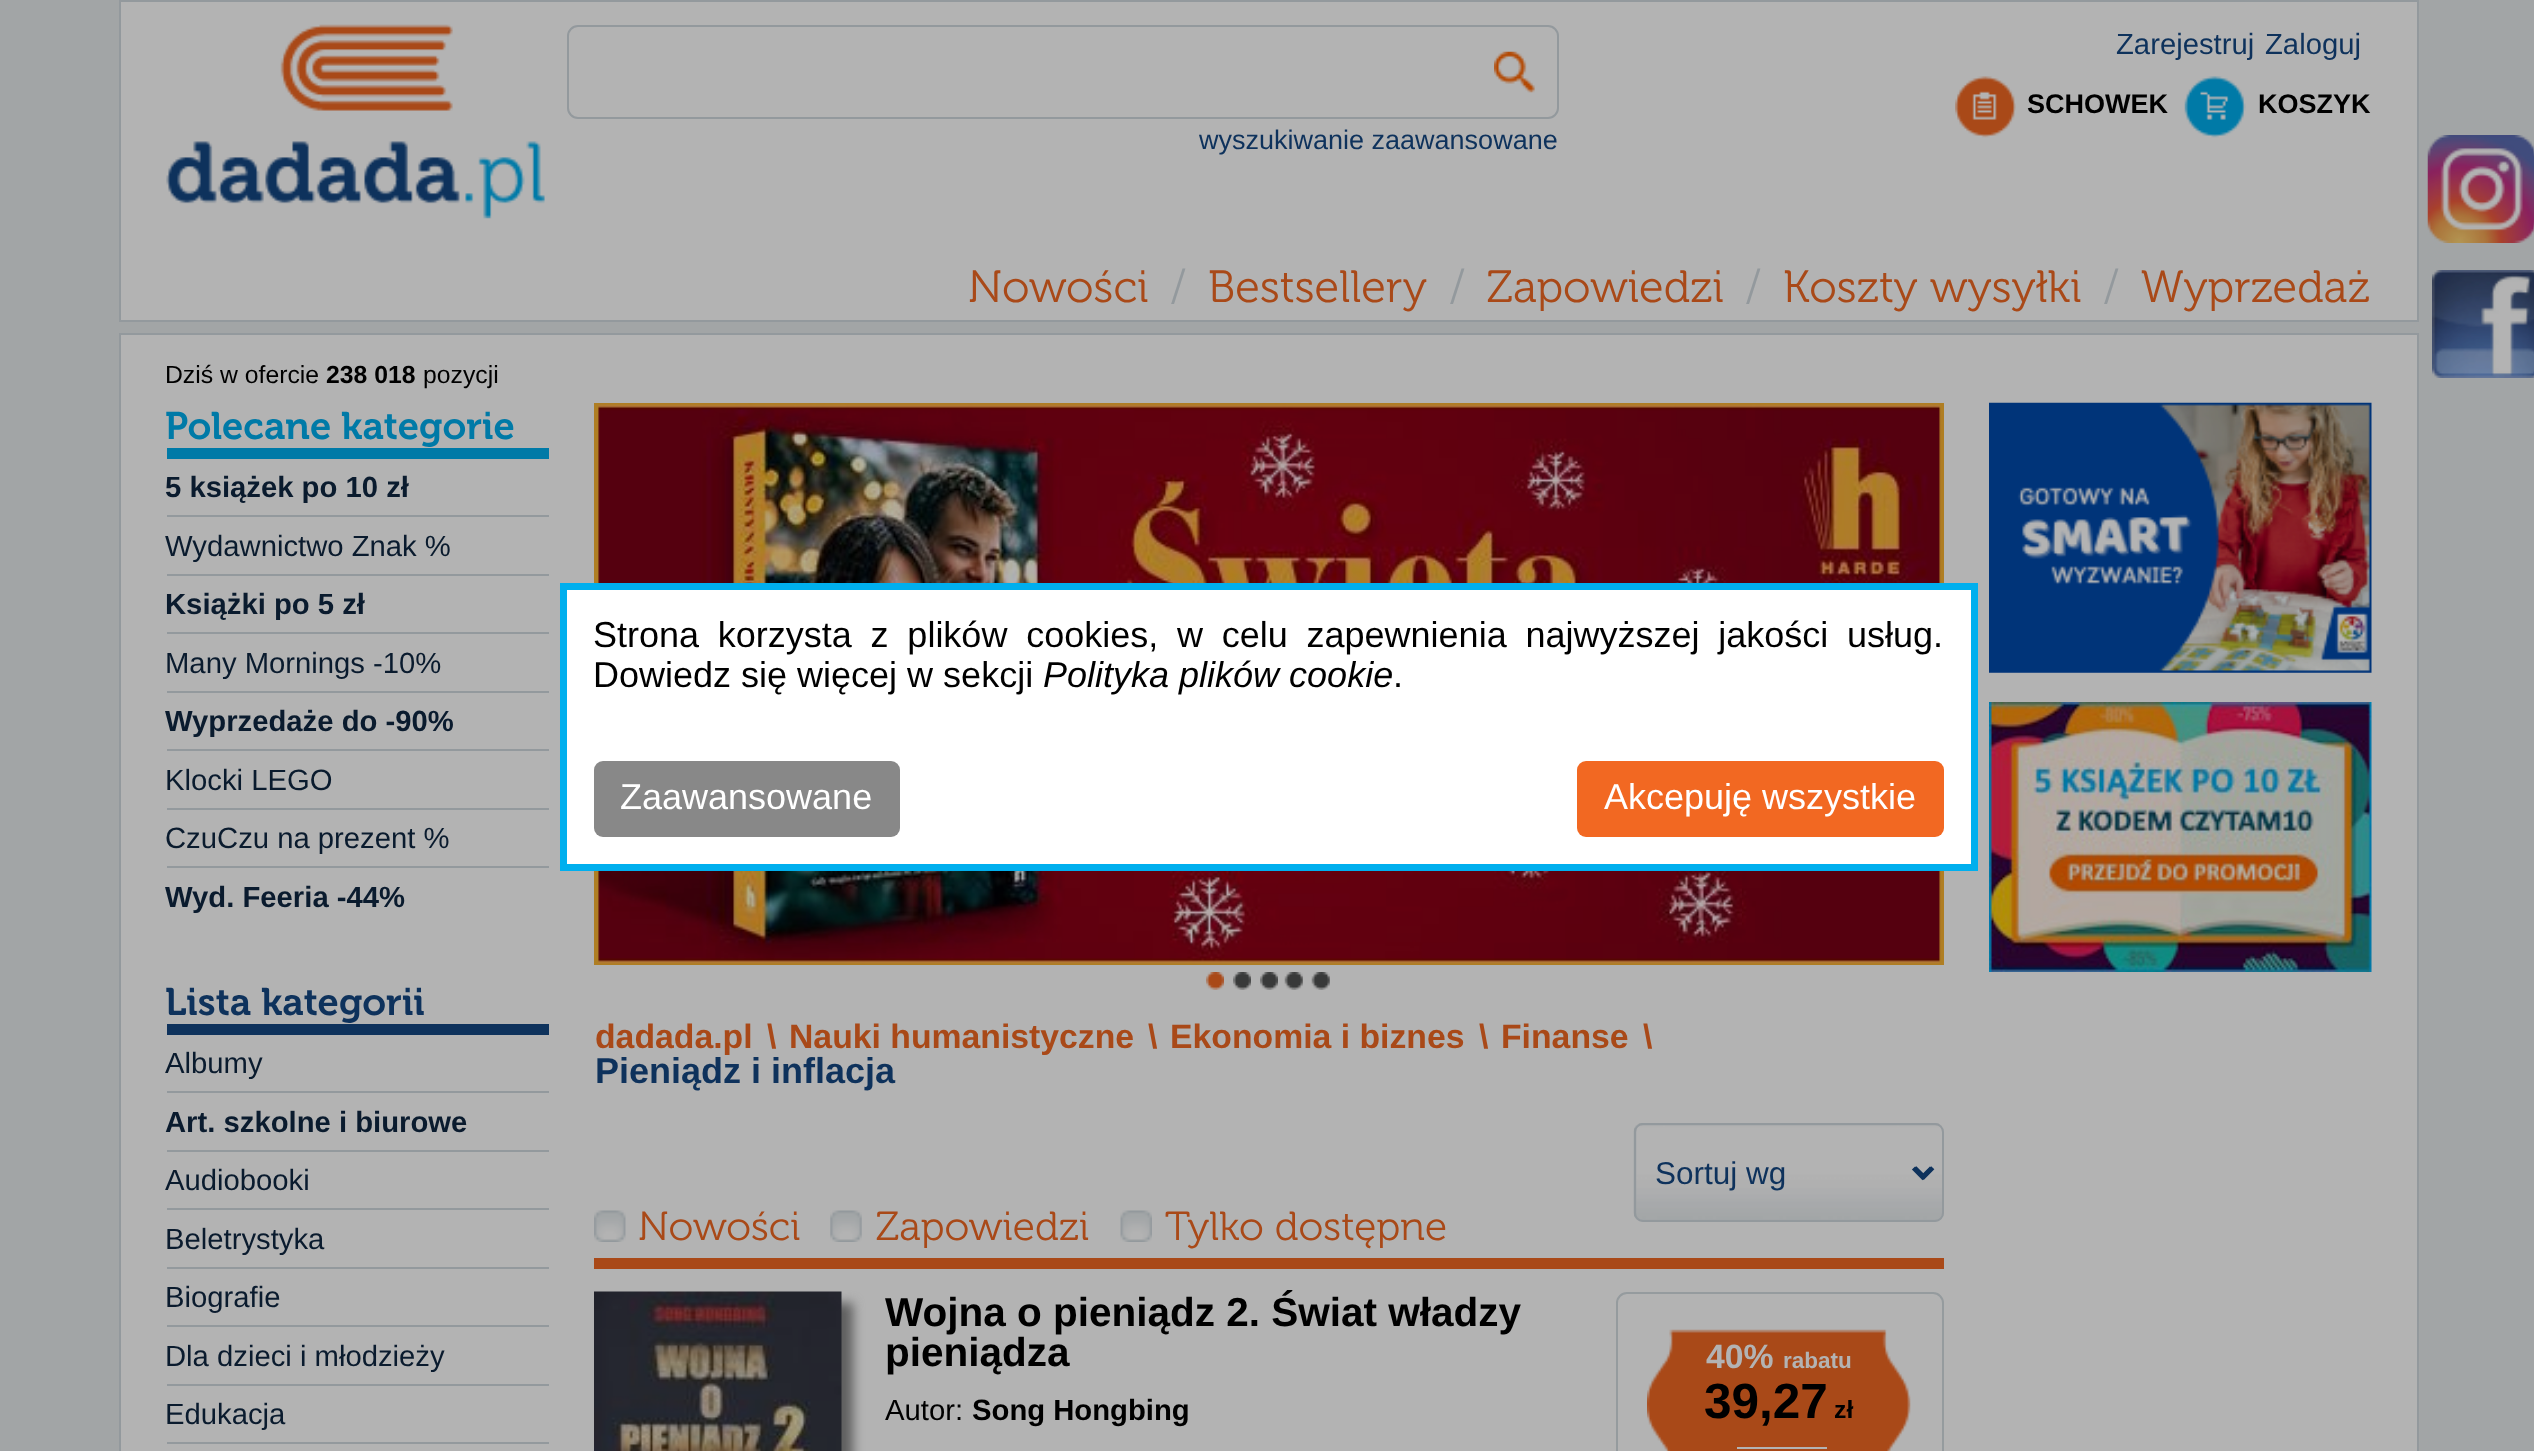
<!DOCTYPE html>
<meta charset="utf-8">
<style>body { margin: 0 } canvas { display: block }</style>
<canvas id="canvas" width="2534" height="1451"></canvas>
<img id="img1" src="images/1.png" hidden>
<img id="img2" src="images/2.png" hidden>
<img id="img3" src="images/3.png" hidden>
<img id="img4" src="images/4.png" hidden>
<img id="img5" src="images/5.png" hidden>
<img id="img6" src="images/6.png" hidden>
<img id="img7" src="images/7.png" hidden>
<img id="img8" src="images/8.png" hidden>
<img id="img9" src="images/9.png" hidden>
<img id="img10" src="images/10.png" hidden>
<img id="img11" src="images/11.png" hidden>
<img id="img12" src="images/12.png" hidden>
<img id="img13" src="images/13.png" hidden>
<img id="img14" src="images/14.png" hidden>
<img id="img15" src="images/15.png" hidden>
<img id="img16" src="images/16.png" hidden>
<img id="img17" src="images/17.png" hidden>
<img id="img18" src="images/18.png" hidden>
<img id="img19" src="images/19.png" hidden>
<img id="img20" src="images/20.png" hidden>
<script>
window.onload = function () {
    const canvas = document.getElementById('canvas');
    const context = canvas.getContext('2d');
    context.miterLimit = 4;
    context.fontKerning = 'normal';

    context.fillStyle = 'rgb(162, 165, 166)';
    context.fillRect(0, 0, 2534, 1451);
    context.fillStyle = 'rgb(179, 179, 179)';
    context.beginPath();
    context.rect(120, 1, 2298, 320);
    context.fill();
    context.strokeStyle = 'rgb(147, 153, 157)';
    context.lineWidth = 2;
    context.stroke();
    context.drawImage(document.getElementById('img1'), 166, 24, 379, 195);
    context.drawImage(document.getElementById('img2'), 1955, 76, 61, 62);
    context.drawImage(document.getElementById('img3'), 2184, 76, 62, 62);
    context.beginPath();
    context.roundRect(568, 26, 990, 92, 10);
    context.stroke();
    context.drawImage(document.getElementById('img4'), 1494, 51, 41, 42);
    context.drawImage(document.getElementById('img5'), 2427, 135, 107, 108);
    context.drawImage(document.getElementById('img6'), 2432, 270, 102, 108);
    context.beginPath();
    context.rect(120, 334, 2298, 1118);
    context.fill();
    context.stroke();
    context.fillStyle = 'rgb(0, 122, 167)';
    context.fillRect(167, 448, 382, 11);
    context.fillStyle = 'rgb(147, 153, 157)';
    context.fillRect(167, 515, 382, 2);
    context.fillRect(167, 574, 382, 2);
    context.fillRect(167, 632, 382, 2);
    context.fillRect(167, 691, 382, 2);
    context.fillRect(167, 749, 382, 2);
    context.fillRect(167, 808, 382, 2);
    context.fillRect(167, 866, 382, 2);
    context.fillStyle = 'rgb(14, 50, 92)';
    context.fillRect(167, 1024, 382, 11);
    context.fillStyle = 'rgb(147, 153, 157)';
    context.fillRect(167, 1091, 382, 2);
    context.fillRect(167, 1150, 382, 2);
    context.fillRect(167, 1208, 382, 2);
    context.fillRect(167, 1267, 382, 2);
    context.fillRect(167, 1325, 382, 2);
    context.fillRect(167, 1384, 382, 2);
    context.fillRect(167, 1442, 382, 2);
    context.drawImage(document.getElementById('img7'), 1989, 402, 383, 271);
    context.drawImage(document.getElementById('img8'), 1989, 702, 383, 270);
    context.drawImage(document.getElementById('img9'), 594, 403, 1350, 562);
    context.drawImage(document.getElementById('img10'), 1206, 972, 18, 18);
    context.drawImage(document.getElementById('img11'), 1233, 972, 18, 18);
    context.drawImage(document.getElementById('img12'), 1260, 972, 18, 18);
    context.drawImage(document.getElementById('img13'), 1284, 972, 19, 18);
    context.drawImage(document.getElementById('img14'), 1311, 972, 19, 18);
    context.drawImage(document.getElementById('img15'), 1633, 1123, 311, 99);
    context.beginPath();
    context.roundRect(1635, 1124, 308, 97, 8);
    context.stroke();
    context.beginPath();
    context.moveTo(1913.5, 1168);
    context.lineTo(1922.5, 1177);
    context.lineTo(1931.5, 1168);
    context.strokeStyle = 'rgb(14, 50, 92)';
    context.lineWidth = 4.5;
    context.stroke();
    context.fillStyle = 'rgb(169, 73, 24)';
    context.fillRect(594, 1258, 1350, 11);
    context.drawImage(document.getElementById('img16'), 594, 1210, 32, 32);
    context.drawImage(document.getElementById('img17'), 830, 1210, 32, 32);
    context.drawImage(document.getElementById('img18'), 1120, 1210, 32, 32);
    context.fillStyle = 'rgb(95, 95, 95)';
    context.filter = 'blur(5.5px)';
    context.beginPath();
    context.rect(605, 1303, 248, 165);
    context.fill();
    context.filter = 'none';
    context.drawImage(document.getElementById('img19'), 594, 1291, 248, 160);
    context.beginPath();
    context.roundRect(1617, 1293, 326, 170, 10);
    context.strokeStyle = 'rgb(149, 155, 158)';
    context.lineWidth = 2;
    context.stroke();
    context.drawImage(document.getElementById('img20'), 1647, 1329, 264, 122);
    context.fillStyle = 'rgb(179, 179, 179)';
    context.fillRect(1737, 1447, 90, 2);
    context.fillStyle = 'rgb(255, 255, 255)';
    context.beginPath();
    context.rect(563.5, 586.5, 1411, 281);
    context.fill();
    context.strokeStyle = 'rgb(0, 175, 238)';
    context.lineWidth = 7;
    context.stroke();
    context.fillStyle = 'rgb(136, 136, 136)';
    context.beginPath();
    context.roundRect(594, 761, 306, 76, 9);
    context.fill();
    context.fillStyle = 'rgb(242, 104, 34)';
    context.beginPath();
    context.roundRect(1577, 761, 367, 76, 9);
    context.fill();
    context.font = '29.25px Liberation Sans';
    context.fillStyle = 'rgb(14, 50, 92)';
    context.fillText('Zarejestruj', 2116, 54);
    context.fillText('Zaloguj', 2265, 54);
    context.font = 'bold 27px Liberation Sans';
    context.fillStyle = 'rgb(0, 0, 0)';
    context.fillText('SCHOWEK', 2027, 113);
    context.fillText('KOSZYK', 2258, 113);
    context.font = '27px Liberation Sans';
    context.fillStyle = 'rgb(14, 50, 92)';
    context.fillText('wyszukiwanie zaawansowane', 1199, 149);
    context.font = '45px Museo';
    context.fillStyle = 'rgb(169, 73, 24)';
    context.fillText('Nowości', 968, 302);
    context.fillStyle = 'rgb(147, 153, 157)';
    context.fillText('/', 1171, 302);
    context.fillStyle = 'rgb(169, 73, 24)';
    context.fillText('Bestsellery', 1208, 302);
    context.fillStyle = 'rgb(147, 153, 157)';
    context.fillText('/', 1450, 302);
    context.fillStyle = 'rgb(169, 73, 24)';
    context.fillText('Zapowiedzi', 1487, 302);
    context.fillStyle = 'rgb(147, 153, 157)';
    context.fillText('/', 1746, 302);
    context.fillStyle = 'rgb(169, 73, 24)';
    context.fillText('Koszty wysyłki', 1783, 302);
    context.fillStyle = 'rgb(147, 153, 157)';
    context.fillText('/', 2104, 302);
    context.fillStyle = 'rgb(169, 73, 24)';
    context.fillText('Wyprzedaż', 2141, 302);
    context.font = '24.75px Liberation Sans';
    context.fillStyle = 'rgb(0, 0, 0)';
    context.fillText('Dziś w ofercie', 165, 383);
    context.font = 'bold 24.75px Liberation Sans';
    context.fillText('238 018', 326, 383);
    context.font = '24.75px Liberation Sans';
    context.fillText('pozycji', 423, 383);
    context.font = '38.25px "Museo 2"';
    context.fillStyle = 'rgb(0, 122, 167)';
    context.fillText('Polecane kategorie', 165, 439);
    context.font = 'bold 29.25px Liberation Sans';
    context.fillStyle = 'rgb(10, 27, 46)';
    context.fillText('5 książek po 10 zł', 165, 497);
    context.font = '29.25px Liberation Sans';
    context.fillText('Wydawnictwo Znak %', 165, 556);
    context.font = 'bold 29.25px Liberation Sans';
    context.fillText('Książki po 5 zł', 165, 614);
    context.font = '29.25px Liberation Sans';
    context.fillText('Many Mornings -10%', 165, 673);
    context.font = 'bold 29.25px Liberation Sans';
    context.fillText('Wyprzedaże do -90%', 165, 731);
    context.font = '29.25px Liberation Sans';
    context.fillText('Klocki LEGO', 165, 790);
    context.fillText('CzuCzu na prezent %', 165, 848);
    context.font = 'bold 29.25px Liberation Sans';
    context.fillText('Wyd. Feeria -44%', 165, 907);
    context.font = '38.25px "Museo 2"';
    context.fillStyle = 'rgb(14, 50, 92)';
    context.fillText('Lista kategorii', 165, 1015);
    context.font = '29.25px Liberation Sans';
    context.fillStyle = 'rgb(10, 27, 46)';
    context.fillText('Albumy', 165, 1073);
    context.font = 'bold 29.25px Liberation Sans';
    context.fillText('Art. szkolne i biurowe', 165, 1132);
    context.font = '29.25px Liberation Sans';
    context.fillText('Audiobooki', 165, 1190);
    context.fillText('Beletrystyka', 165, 1249);
    context.fillText('Biografie', 165, 1307);
    context.fillText('Dla dzieci i młodzieży', 165, 1366);
    context.fillText('Edukacja', 165, 1424);
    context.font = 'bold 33.75px Liberation Sans';
    context.fillStyle = 'rgb(169, 73, 24)';
    context.fillText('dadada.pl', 595, 1048);
    context.fillText('\\', 767, 1048);
    context.fillText('Nauki humanistyczne', 789, 1048);
    context.fillText('\\', 1148, 1048);
    context.fillText('Ekonomia i biznes', 1170, 1048);
    context.fillText('\\', 1479, 1048);
    context.fillText('Finanse', 1501, 1048);
    context.fillText('\\', 1643, 1048);
    context.font = 'bold 36px Liberation Sans';
    context.fillStyle = 'rgb(14, 50, 92)';
    context.fillText('Pieniądz i inflacja', 595, 1083);
    context.font = '31.5px Liberation Sans';
    context.fillText('Sortuj wg', 1655, 1184);
    context.font = '40.5px Museo';
    context.fillStyle = 'rgb(169, 73, 24)';
    context.fillText('Nowości', 638, 1240);
    context.fillText('Zapowiedzi', 876, 1240);
    context.fillText('Tylko dostępne', 1165, 1240);
    context.font = 'bold 40.5px Liberation Sans';
    context.fillStyle = 'rgb(0, 0, 0)';
    context.fillText('Wojna o pieniądz 2. Świat władzy', 885, 1326);
    context.fillText('pieniądza', 885, 1366);
    context.font = '29.25px Liberation Sans';
    context.fillText('Autor:', 885, 1420);
    context.font = 'bold 29.25px Liberation Sans';
    context.fillText('Song Hongbing', 972, 1420);
    context.font = 'bold 33.75px Liberation Sans';
    context.fillStyle = 'rgb(179, 179, 179)';
    context.fillText('40%', 1706, 1368);
    context.font = 'bold 22.5px Liberation Sans';
    context.fillText('rabatu', 1783, 1368);
    context.font = 'bold 49.5px Liberation Sans';
    context.fillStyle = 'rgb(0, 0, 0)';
    context.fillText('39,27', 1704, 1418);
    context.font = 'bold 24.75px Liberation Sans';
    context.fillText('zł', 1834, 1418);
    context.wordSpacing = '8.75px';
    context.font = '36px Liberation Sans';
    context.fillText('Strona korzysta z plików cookies, w celu zapewnienia najwyższej jakości usług.', 593, 647);
    context.wordSpacing = '0px';
    context.fillText('Dowiedz się więcej w sekcji', 593, 687);
    context.font = 'italic 36px Liberation Sans';
    context.fillText('Polityka plików cookie', 1043, 687);
    context.font = '36px Liberation Sans';
    context.fillText('.', 1393, 687);
    context.fillStyle = 'rgb(255, 255, 255)';
    context.fillText('Zaawansowane', 620, 809);
    context.fillText('Akcepuję wszystkie', 1604, 809);
};
</script>
